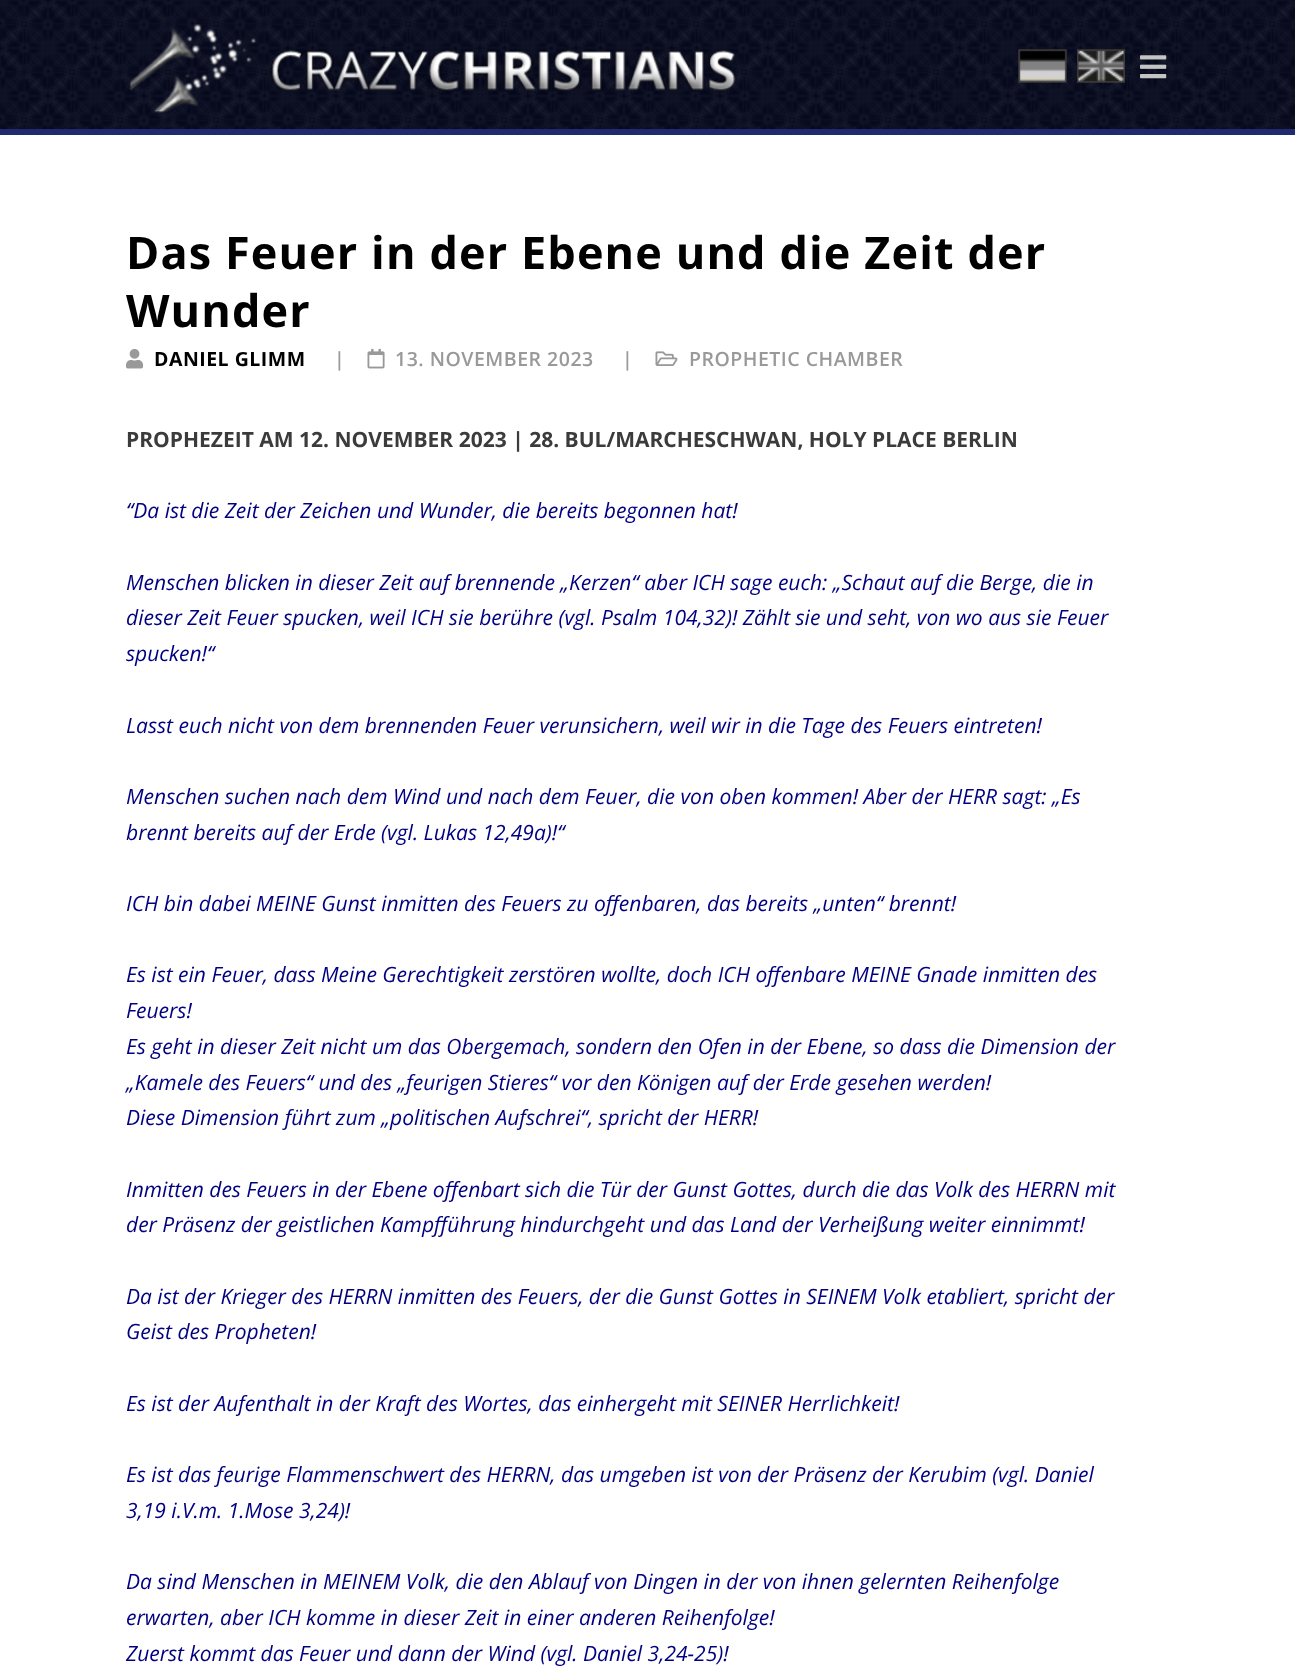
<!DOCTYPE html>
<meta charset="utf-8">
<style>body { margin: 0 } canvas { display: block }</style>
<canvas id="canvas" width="1295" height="1670"></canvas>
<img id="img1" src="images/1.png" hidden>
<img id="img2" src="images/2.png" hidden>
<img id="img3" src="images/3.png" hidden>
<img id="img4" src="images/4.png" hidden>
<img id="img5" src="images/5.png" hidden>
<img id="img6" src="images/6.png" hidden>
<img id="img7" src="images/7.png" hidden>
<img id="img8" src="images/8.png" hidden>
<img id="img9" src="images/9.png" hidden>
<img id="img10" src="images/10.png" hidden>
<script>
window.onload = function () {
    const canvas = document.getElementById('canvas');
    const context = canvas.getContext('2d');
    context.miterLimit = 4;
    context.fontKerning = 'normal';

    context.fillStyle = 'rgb(255, 255, 255)';
    context.fillRect(0, 0, 1295, 1670);
    context.drawImage(document.getElementById('img1'), 0, 0, 1295, 129);
    context.fillStyle = 'rgb(31, 42, 111)';
    context.fillRect(0, 129, 1295, 6);
    context.drawImage(document.getElementById('img2'), 130, 24, 607, 89);
    context.drawImage(document.getElementById('img3'), 1018, 49, 49, 34);
    context.drawImage(document.getElementById('img4'), 1018, 49, 49, 34);
    context.drawImage(document.getElementById('img5'), 1077, 49, 48, 34);
    context.drawImage(document.getElementById('img6'), 1077, 49, 48, 34);
    context.drawImage(document.getElementById('img7'), 1140, 55, 27, 24);
    context.drawImage(document.getElementById('img8'), 126, 348, 18, 21);
    context.drawImage(document.getElementById('img9'), 367, 348, 18, 21);
    context.drawImage(document.getElementById('img10'), 655, 351, 23, 15);
    context.letterSpacing = '1.1px';
    context.font = 'bold 45px Open Sans';
    context.fillStyle = 'rgb(0, 0, 0)';
    context.fillText('Das Feuer in der Ebene und die Zeit der', 126, 269);
    context.fillText('Wunder', 126, 327);
    context.letterSpacing = '0.5px';
    context.font = 'bold 19.5px Open Sans';
    context.fillText('DANIEL GLIMM', 154, 366);
    context.font = '600 19.5px Open Sans';
    context.fillStyle = 'rgb(153, 153, 153)';
    context.fillText('|', 334, 366);
    context.fillText('13. NOVEMBER 2023', 395, 366);
    context.fillText('|', 622, 366);
    context.fillText('PROPHETIC CHAMBER', 689, 366);
    context.letterSpacing = '0px';
    context.font = 'bold 21px Open Sans';
    context.fillStyle = 'rgb(59, 59, 59)';
    context.fillText('PROPHEZEIT AM 12. NOVEMBER 2023 | 28. BUL/MARCHESCHWAN, HOLY PLACE BERLIN', 126, 447);
    context.font = 'italic 21px Open Sans';
    context.fillStyle = 'rgb(0, 0, 128)';
    context.fillText('“Da ist die Zeit der Zeichen und Wunder, die bereits begonnen hat!', 126, 518);
    context.fillText('Menschen blicken in dieser Zeit auf brennende „Kerzen“ aber ICH sage euch: „Schaut auf die Berge, die in', 126, 590);
    context.fillText('dieser Zeit Feuer spucken, weil ICH sie berühre (vgl. Psalm 104,32)! Zählt sie und seht, von wo aus sie Feuer', 126, 625);
    context.fillText('spucken!“', 126, 661);
    context.fillText('Lasst euch nicht von dem brennenden Feuer verunsichern, weil wir in die Tage des Feuers eintreten!', 126, 733);
    context.fillText('Menschen suchen nach dem Wind und nach dem Feuer, die von oben kommen! Aber der HERR sagt: „Es', 126, 804);
    context.fillText('brennt bereits auf der Erde (vgl. Lukas 12,49a)!“', 126, 840);
    context.fillText('ICH bin dabei MEINE Gunst inmitten des Feuers zu offenbaren, das bereits „unten“ brennt!', 126, 911);
    context.fillText('Es ist ein Feuer, dass Meine Gerechtigkeit zerstören wollte, doch ICH offenbare MEINE Gnade inmitten des', 126, 982);
    context.fillText('Feuers!', 126, 1018);
    context.fillText('Es geht in dieser Zeit nicht um das Obergemach, sondern den Ofen in der Ebene, so dass die Dimension der', 126, 1054);
    context.fillText('„Kamele des Feuers“ und des „feurigen Stieres“ vor den Königen auf der Erde gesehen werden!', 126, 1090);
    context.fillText('Diese Dimension führt zum „politischen Aufschrei“, spricht der HERR!', 126, 1125);
    context.fillText('Inmitten des Feuers in der Ebene offenbart sich die Tür der Gunst Gottes, durch die das Volk des HERRN mit', 126, 1197);
    context.fillText('der Präsenz der geistlichen Kampfführung hindurchgeht und das Land der Verheißung weiter einnimmt!', 126, 1232);
    context.fillText('Da ist der Krieger des HERRN inmitten des Feuers, der die Gunst Gottes in SEINEM Volk etabliert, spricht der', 126, 1304);
    context.fillText('Geist des Propheten!', 126, 1339);
    context.fillText('Es ist der Aufenthalt in der Kraft des Wortes, das einhergeht mit SEINER Herrlichkeit!', 126, 1411);
    context.fillText('Es ist das feurige Flammenschwert des HERRN, das umgeben ist von der Präsenz der Kerubim (vgl. Daniel', 126, 1482);
    context.fillText('3,19 i.V.m. 1.Mose 3,24)!', 126, 1518);
    context.fillText('Da sind Menschen in MEINEM Volk, die den Ablauf von Dingen in der von ihnen gelernten Reihenfolge', 126, 1589);
    context.fillText('erwarten, aber ICH komme in dieser Zeit in einer anderen Reihenfolge!', 126, 1625);
    context.fillText('Zuerst kommt das Feuer und dann der Wind (vgl. Daniel 3,24-25)!', 126, 1661);
};
</script>
